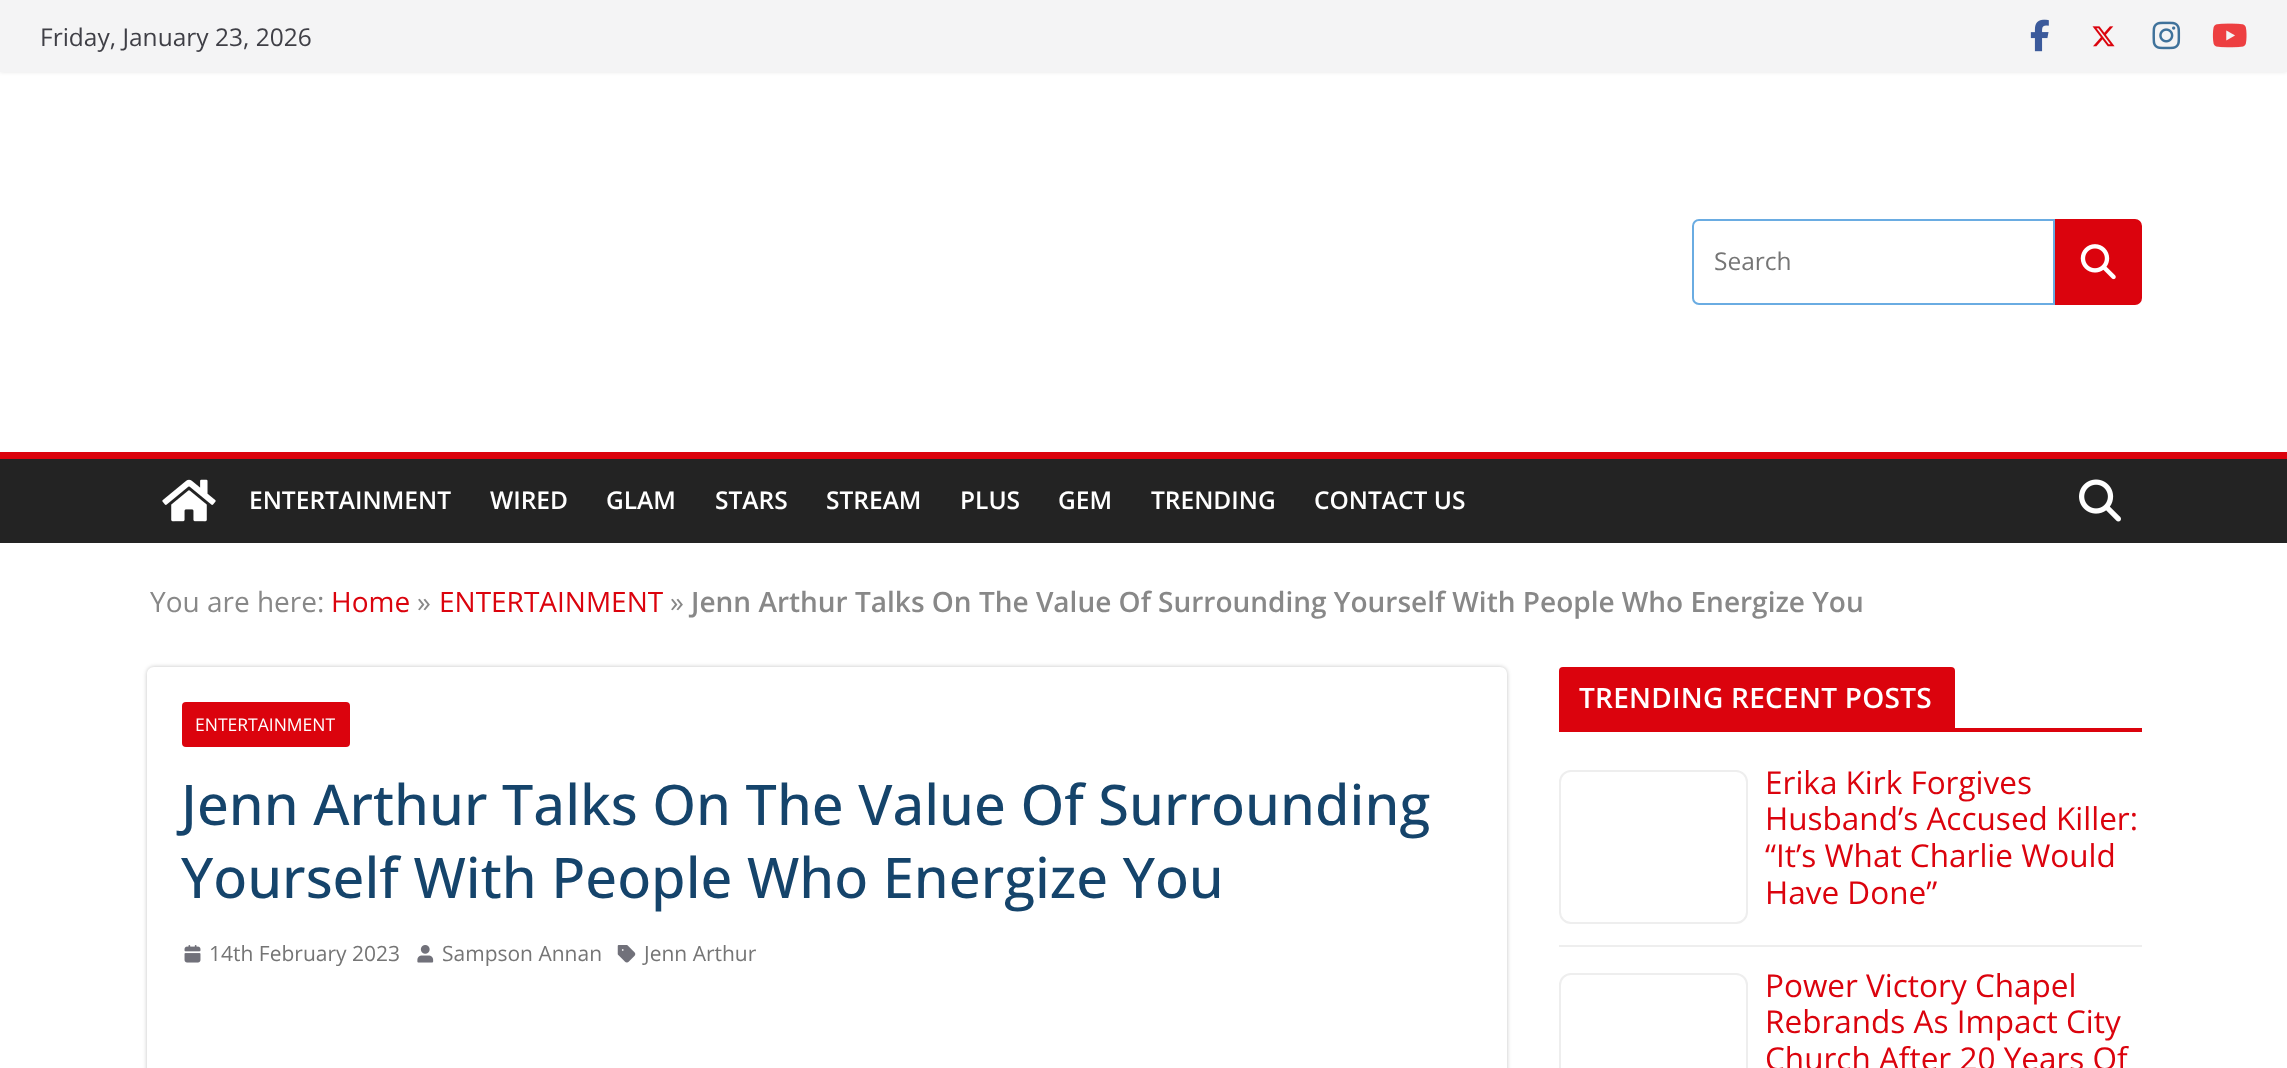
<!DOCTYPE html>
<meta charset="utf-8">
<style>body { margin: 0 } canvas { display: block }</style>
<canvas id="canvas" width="2287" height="1068"></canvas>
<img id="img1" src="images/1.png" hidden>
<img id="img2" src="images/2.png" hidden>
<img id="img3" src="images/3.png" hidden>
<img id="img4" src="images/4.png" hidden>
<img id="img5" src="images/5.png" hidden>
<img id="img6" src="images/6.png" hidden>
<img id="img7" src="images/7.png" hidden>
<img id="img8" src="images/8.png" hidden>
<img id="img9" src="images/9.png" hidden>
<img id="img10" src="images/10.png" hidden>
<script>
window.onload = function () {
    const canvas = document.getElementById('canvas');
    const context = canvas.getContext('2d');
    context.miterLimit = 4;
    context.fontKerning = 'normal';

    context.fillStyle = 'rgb(255, 255, 255)';
    context.fillRect(0, 0, 2287, 1068);
    context.fillStyle = 'rgba(0, 0, 0, 0.1)';
    context.filter = 'blur(2px)';
    context.beginPath();
    context.rect(0, 0, 2287, 72);
    context.fill();
    context.filter = 'none';
    context.fillStyle = 'rgb(244, 244, 245)';
    context.fillRect(0, 0, 2287, 72);
    context.drawImage(document.getElementById('img1'), 2030, 19, 19, 33);
    context.drawImage(document.getElementById('img2'), 2092, 26, 23, 21);
    context.drawImage(document.getElementById('img3'), 2152, 21, 29, 29);
    context.drawImage(document.getElementById('img4'), 2212, 23, 35, 25);
    context.beginPath();
    context.roundRect(1693, 220, 361, 84, [6, 0, 0, 6]);
    context.strokeStyle = 'rgb(106, 172, 226)';
    context.lineWidth = 2;
    context.stroke();
    context.fillStyle = 'rgb(219, 3, 13)';
    context.beginPath();
    context.roundRect(2056, 220, 85, 84, [0, 6, 6, 0]);
    context.fill();
    context.strokeStyle = 'rgb(219, 3, 13)';
    context.stroke();
    context.drawImage(document.getElementById('img5'), 2080, 244, 36, 36);
    context.fillStyle = 'rgb(35, 35, 35)';
    context.fillRect(0, 459, 2287, 84);
    context.fillStyle = 'rgb(219, 3, 13)';
    context.fillRect(0, 452, 2287, 7);
    context.drawImage(document.getElementById('img6'), 162, 479, 54, 43);
    context.drawImage(document.getElementById('img7'), 2079, 479, 42, 43);
    context.save();
    context.beginPath();
    context.moveTo(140, 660);
    context.lineTo(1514, 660);
    context.lineTo(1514, 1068);
    context.lineTo(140, 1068);
    context.closePath();
    context.moveTo(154, 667);
    context.lineTo(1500, 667);
    context.bezierCurveTo(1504, 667, 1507, 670, 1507, 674);
    context.lineTo(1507, 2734);
    context.bezierCurveTo(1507, 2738, 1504, 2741, 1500, 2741);
    context.lineTo(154, 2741);
    context.bezierCurveTo(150, 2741, 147, 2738, 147, 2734);
    context.lineTo(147, 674);
    context.bezierCurveTo(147, 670, 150, 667, 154, 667);
    context.closePath();
    context.clip('evenodd');
    context.fillStyle = 'rgba(0, 0, 0, 0.24)';
    context.filter = 'blur(2px)';
    context.beginPath();
    context.roundRect(147, 667, 1360, 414, 7);
    context.fill();
    context.filter = 'none';
    context.restore();
    context.beginPath();
    context.roundRect(182, 702, 168, 45, 4);
    context.fill();
    context.drawImage(document.getElementById('img8'), 184, 945, 17, 18);
    context.drawImage(document.getElementById('img9'), 417, 945, 17, 18);
    context.drawImage(document.getElementById('img10'), 617, 945, 19, 18);
    context.fillRect(1559, 728, 583, 4);
    context.beginPath();
    context.roundRect(1559, 667, 396, 61, [4, 4, 0, 0]);
    context.fill();
    context.fillStyle = 'rgb(238, 238, 238)';
    context.fillRect(1559, 945, 583, 2);
    context.beginPath();
    context.roundRect(1560, 771, 187, 152, 11);
    context.strokeStyle = 'rgb(238, 238, 238)';
    context.stroke();
    context.beginPath();
    context.roundRect(1560, 974, 187, 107, 11);
    context.stroke();
    context.font = '24.5px Open Sans';
    context.fillStyle = 'rgb(63, 63, 70)';
    context.fillText('Friday, January 23, 2026', 40, 46);
    context.fillStyle = 'rgb(117, 117, 117)';
    context.fillText('Search', 1714, 270);
    context.font = '600 24.5px Open Sans';
    context.fillStyle = 'rgb(255, 255, 255)';
    context.fillText('ENTERTAINMENT', 249, 509);
    context.fillText('WIRED', 490, 509);
    context.fillText('GLAM', 606, 509);
    context.fillText('STARS', 715, 509);
    context.fillText('STREAM', 826, 509);
    context.fillText('PLUS', 960, 509);
    context.fillText('GEM', 1058, 509);
    context.fillText('TRENDING', 1151, 509);
    context.fillText('CONTACT US', 1314, 509);
    context.font = '28px Open Sans';
    context.fillStyle = 'rgb(136, 136, 136)';
    context.fillText('You are here:', 150, 612);
    context.fillStyle = 'rgb(219, 3, 13)';
    context.fillText('Home', 331, 612);
    context.fillStyle = 'rgb(136, 136, 136)';
    context.fillText('»', 417, 612);
    context.fillStyle = 'rgb(219, 3, 13)';
    context.fillText('ENTERTAINMENT', 439, 612);
    context.fillStyle = 'rgb(136, 136, 136)';
    context.fillText('»', 670, 612);
    context.font = '600 28px Open Sans';
    context.fillText('Jenn Arthur Talks On The Value Of Surrounding Yourself With People Who Energize You', 691, 612);
    context.font = '17.5px Open Sans';
    context.fillStyle = 'rgb(255, 255, 255)';
    context.fillText('ENTERTAINMENT', 195, 731);
    context.font = '500 56px Open Sans';
    context.fillStyle = 'rgb(21, 68, 107)';
    context.fillText('Jenn Arthur Talks On The Value Of Surrounding', 181, 825);
    context.fillText('Yourself With People Who Energize You', 181, 898);
    context.font = '21px Open Sans';
    context.fillStyle = 'rgb(117, 117, 117)';
    context.fillText('14th February 2023', 209, 961);
    context.fillText('Sampson Annan', 442, 961);
    context.fillText('Jenn Arthur', 644, 961);
    context.letterSpacing = '0.25px';
    context.font = '600 28px Open Sans';
    context.fillStyle = 'rgb(255, 255, 255)';
    context.fillText('TRENDING RECENT POSTS', 1579, 708);
    context.letterSpacing = '0px';
    context.font = '31.5px Open Sans';
    context.fillStyle = 'rgb(219, 3, 13)';
    context.fillText('Erika Kirk Forgives', 1765, 794);
    context.fillText('Husband’s Accused Killer:', 1765, 830);
    context.fillText('“It’s What Charlie Would', 1765, 867);
    context.fillText('Have Done”', 1765, 904);
    context.fillText('Power Victory Chapel', 1765, 997);
    context.fillText('Rebrands As Impact City', 1765, 1033);
    context.fillText('Church After 20 Years Of', 1765, 1070);
};
</script>
